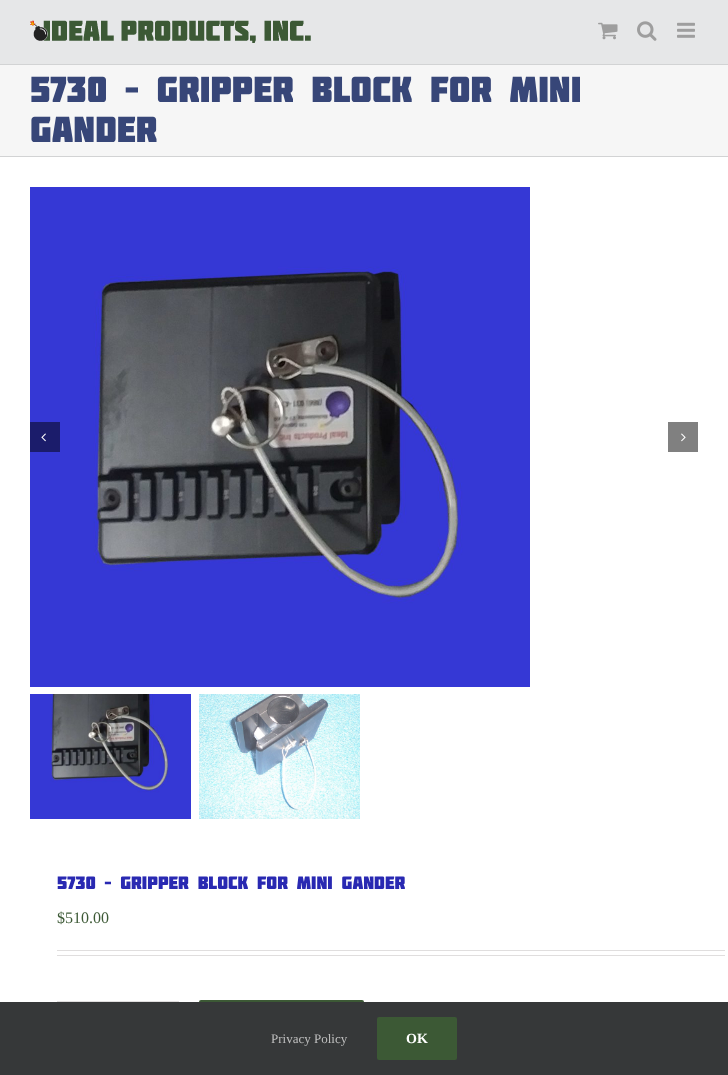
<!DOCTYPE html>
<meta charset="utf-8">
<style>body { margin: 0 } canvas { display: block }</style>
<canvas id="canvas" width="728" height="1075"></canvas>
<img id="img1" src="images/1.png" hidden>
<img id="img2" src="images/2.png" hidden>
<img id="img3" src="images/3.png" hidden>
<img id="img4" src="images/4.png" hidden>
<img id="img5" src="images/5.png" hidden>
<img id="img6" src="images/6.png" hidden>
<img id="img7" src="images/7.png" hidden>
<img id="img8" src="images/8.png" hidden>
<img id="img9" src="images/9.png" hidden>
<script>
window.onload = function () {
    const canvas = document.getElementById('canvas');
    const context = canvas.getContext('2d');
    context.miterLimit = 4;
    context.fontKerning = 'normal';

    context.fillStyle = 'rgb(255, 255, 255)';
    context.fillRect(0, 0, 728, 1075);
    context.fillStyle = 'rgb(230, 231, 232)';
    context.fillRect(0, 0, 728, 64);
    context.drawImage(document.getElementById('img1'), 30, 20, 281, 23);
    context.drawImage(document.getElementById('img2'), 598, 22, 20, 18);
    context.drawImage(document.getElementById('img3'), 637, 21, 20, 20);
    context.drawImage(document.getElementById('img4'), 677, 22, 18, 16);
    context.fillStyle = 'rgb(246, 246, 246)';
    context.fillRect(0, 65, 728, 91);
    context.fillStyle = 'rgb(210, 211, 212)';
    context.fillRect(0, 64, 728, 1);
    context.fillRect(0, 156, 728, 1);
    context.drawImage(document.getElementById('img5'), 30, 187, 500, 500);
    context.fillStyle = 'rgb(27, 28, 107)';
    context.fillRect(30, 422, 30, 30);
    context.drawImage(document.getElementById('img6'), 41, 433, 5, 9);
    context.fillStyle = 'rgb(128, 128, 128)';
    context.fillRect(668, 422, 30, 30);
    context.drawImage(document.getElementById('img7'), 681, 433, 5, 9);
    context.drawImage(document.getElementById('img8'), 30, 694, 161, 125);
    context.drawImage(document.getElementById('img9'), 199, 694, 161, 125);
    context.fillStyle = 'rgb(224, 222, 222)';
    context.fillRect(57, 950, 668, 1);
    context.fillRect(57, 955, 668, 1);
    context.strokeStyle = 'rgb(224, 222, 222)';
    context.strokeRect(57.5, 1001.5, 121, 41);
    context.fillStyle = 'rgb(60, 89, 53)';
    context.beginPath();
    context.roundRect(199, 1000, 165, 43, 2);
    context.fill();
    context.fillStyle = 'rgb(54, 56, 57)';
    context.fillRect(0, 1002, 728, 73);
    context.fillStyle = 'rgb(60, 89, 53)';
    context.beginPath();
    context.roundRect(377, 1017, 80, 43, 2);
    context.fill();
    context.font = '36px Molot';
    context.fillStyle = 'rgb(55, 70, 120)';
    context.fillText('5730 – GRIPPER BLOCK FOR MINI', 30, 102);
    context.fillText('GANDER', 30, 142);
    context.font = '18px Molot';
    context.fillStyle = 'rgb(41, 41, 178)';
    context.fillText('5730 – GRIPPER BLOCK FOR MINI GANDER', 57, 889);
    context.font = '16px Liberation Serif';
    context.fillStyle = 'rgb(60, 89, 53)';
    context.fillText('$510.00', 57, 923);
    context.font = '13px Liberation Serif';
    context.fillStyle = 'rgb(191, 191, 191)';
    context.fillText('Privacy Policy', 271, 1043);
    context.font = 'bold 14px Liberation Serif';
    context.fillStyle = 'rgb(255, 255, 255)';
    context.fillText('OK', 406, 1043);
};
</script>
